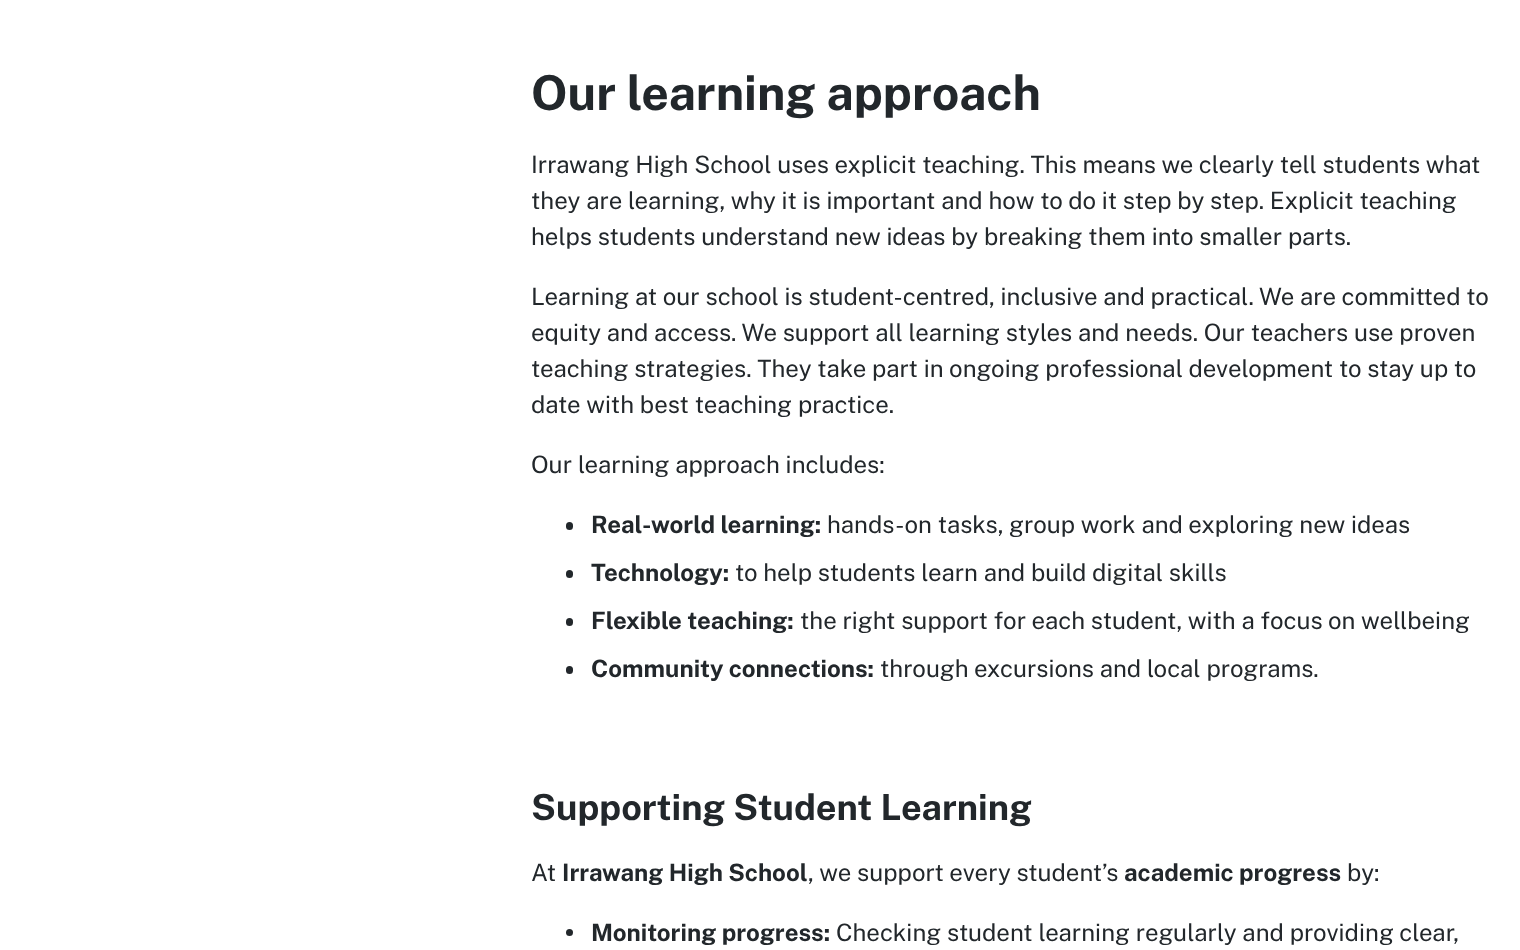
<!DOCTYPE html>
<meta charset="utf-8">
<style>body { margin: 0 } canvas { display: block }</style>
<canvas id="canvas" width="1520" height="950"></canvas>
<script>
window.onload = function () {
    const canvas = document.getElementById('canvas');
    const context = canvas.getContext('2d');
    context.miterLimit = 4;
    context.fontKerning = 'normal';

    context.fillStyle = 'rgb(255, 255, 255)';
    context.fillRect(0, 0, 1520, 950);
    context.fillStyle = 'rgb(34, 39, 43)';
    context.beginPath();
    context.roundRect(566, 522, 7, 8, 3.5);
    context.fill();
    context.beginPath();
    context.roundRect(566, 570, 7, 8, 3.5);
    context.fill();
    context.beginPath();
    context.roundRect(566, 618, 7, 8, 3.5);
    context.fill();
    context.beginPath();
    context.roundRect(566, 666, 7, 8, 3.5);
    context.fill();
    context.beginPath();
    context.arc(569.5, 932.5, 3.5, 0, 2 * Math.PI);
    context.fill();
    context.font = 'bold 48px Public Sans';
    context.fillText('Our learning approach', 531, 110);
    context.font = '24px Public Sans';
    context.fillText('Irrawang High School uses explicit teaching. This means we clearly tell students what', 531, 173);
    context.fillText('they are learning, why it is important and how to do it step by step. Explicit teaching', 531, 209);
    context.fillText('helps students understand new ideas by breaking them into smaller parts.', 531, 245);
    context.fillText('Learning at our school is student-centred, inclusive and practical. We are committed to', 531, 305);
    context.fillText('equity and access. We support all learning styles and needs. Our teachers use proven', 531, 341);
    context.fillText('teaching strategies. They take part in ongoing professional development to stay up to', 531, 377);
    context.fillText('date with best teaching practice.', 531, 413);
    context.fillText('Our learning approach includes:', 531, 473);
    context.font = 'bold 24px Public Sans';
    context.fillText('Real-world learning:', 591, 533);
    context.font = '24px Public Sans';
    context.fillText('hands-on tasks, group work and exploring new ideas', 827, 533);
    context.font = 'bold 24px Public Sans';
    context.fillText('Technology:', 591, 581);
    context.font = '24px Public Sans';
    context.fillText('to help students learn and build digital skills', 735, 581);
    context.font = 'bold 24px Public Sans';
    context.fillText('Flexible teaching:', 591, 629);
    context.font = '24px Public Sans';
    context.fillText('the right support for each student, with a focus on wellbeing', 800, 629);
    context.font = 'bold 24px Public Sans';
    context.fillText('Community connections:', 591, 677);
    context.font = '24px Public Sans';
    context.fillText('through excursions and local programs.', 880, 677);
    context.font = 'bold 36px Public Sans';
    context.fillText('Supporting Student Learning', 531, 820);
    context.font = '24px Public Sans';
    context.fillText('At', 531, 881);
    context.font = 'bold 24px Public Sans';
    context.fillText('Irrawang High School', 562, 881);
    context.font = '24px Public Sans';
    context.fillText(', we support every student’s', 808, 881);
    context.font = 'bold 24px Public Sans';
    context.fillText('academic progress', 1124, 881);
    context.font = '24px Public Sans';
    context.fillText('by:', 1347, 881);
    context.font = 'bold 24px Public Sans';
    context.fillText('Monitoring progress:', 591, 941);
    context.font = '24px Public Sans';
    context.fillText('Checking student learning regularly and providing clear,', 836, 941);
};
</script>
